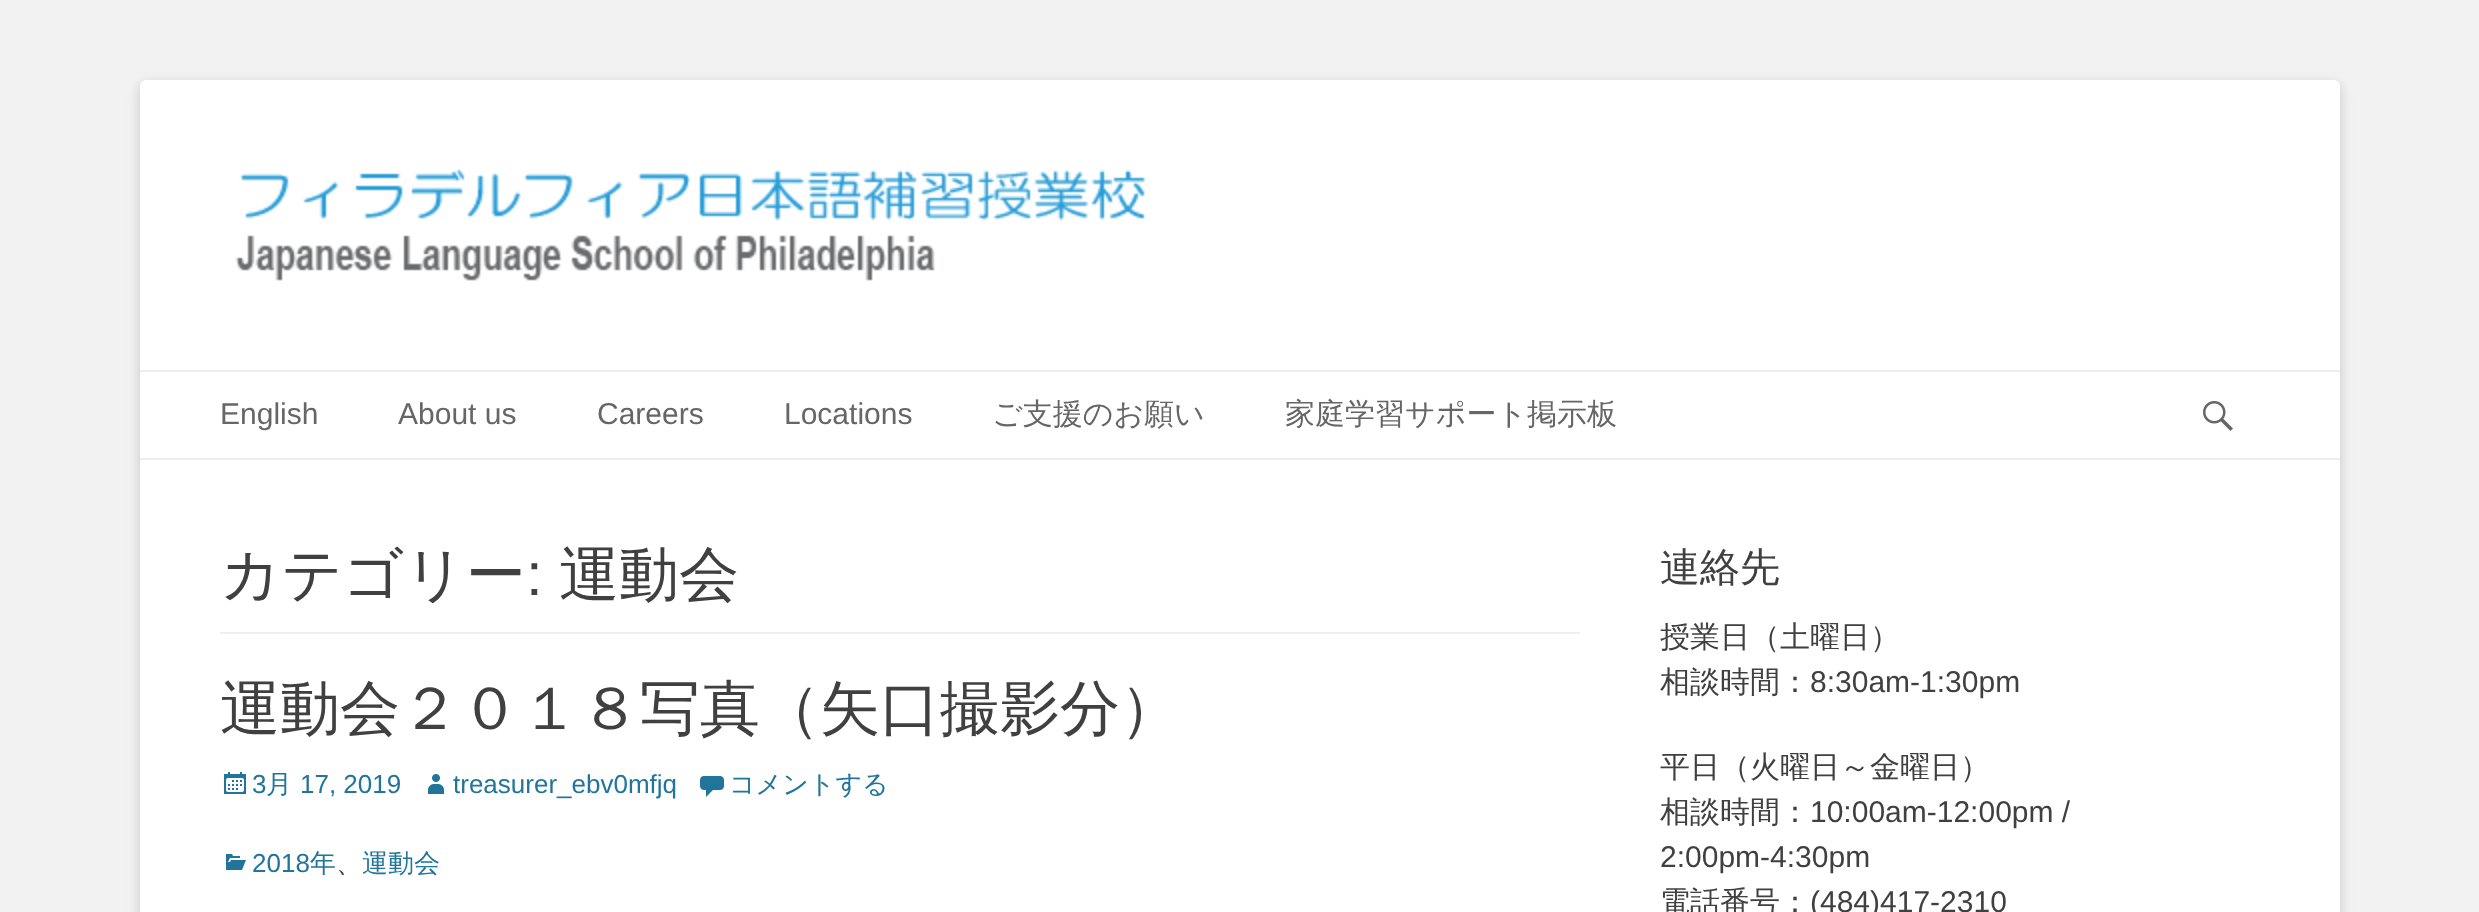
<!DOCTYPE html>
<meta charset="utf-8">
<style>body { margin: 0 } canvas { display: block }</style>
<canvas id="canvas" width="2479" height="912"></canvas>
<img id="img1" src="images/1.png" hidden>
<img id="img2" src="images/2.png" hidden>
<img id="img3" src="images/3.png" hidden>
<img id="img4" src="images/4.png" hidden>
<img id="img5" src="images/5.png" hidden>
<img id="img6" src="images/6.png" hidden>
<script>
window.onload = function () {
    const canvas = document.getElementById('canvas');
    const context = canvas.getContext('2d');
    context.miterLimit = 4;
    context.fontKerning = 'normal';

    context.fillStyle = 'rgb(242, 242, 242)';
    context.fillRect(0, 0, 2479, 912);
    context.fillStyle = 'rgba(100, 100, 100, 0.3)';
    context.filter = 'blur(6px)';
    context.beginPath();
    context.roundRect(140, 84, 2200, 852, 6);
    context.fill();
    context.filter = 'none';
    context.fillStyle = 'rgb(255, 255, 255)';
    context.beginPath();
    context.roundRect(140, 80, 2200, 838, 6);
    context.fill();
    context.drawImage(document.getElementById('img1'), 235, 169, 912, 112);
    context.fillStyle = 'rgb(238, 238, 238)';
    context.fillRect(140, 370, 2200, 2);
    context.fillRect(140, 458, 2200, 2);
    context.drawImage(document.getElementById('img2'), 2203, 401, 30, 30);
    context.fillRect(220, 632, 1360, 2);
    context.drawImage(document.getElementById('img3'), 224, 772, 22, 22);
    context.drawImage(document.getElementById('img4'), 428, 774, 16, 20);
    context.drawImage(document.getElementById('img5'), 700, 776, 24, 21);
    context.drawImage(document.getElementById('img6'), 226, 854, 20, 16);
    context.font = '30px Liberation Sans';
    context.fillStyle = 'rgb(102, 102, 102)';
    context.fillText('English', 220, 424);
    context.fillText('About us', 398, 424);
    context.fillText('Careers', 597, 424);
    context.fillText('Locations', 784, 424);
    context.font = '500 30px WenQuanYi Zen Hei';
    context.fillText('ご支援のお願い', 992, 424);
    context.fillText('家庭学習サポート掲示板', 1285, 424);
    context.font = '500 60px WenQuanYi Zen Hei';
    context.fillStyle = 'rgb(64, 64, 64)';
    context.fillText('カテゴリー', 220, 595);
    context.font = '60px Liberation Sans';
    context.fillText(':', 526, 595);
    context.font = '500 60px WenQuanYi Zen Hei';
    context.fillText('運動会', 559, 595);
    context.fillText('運動会２０１８写真（矢口撮影分）', 220, 729);
    context.font = '26px Liberation Sans';
    context.fillStyle = 'rgb(33, 117, 155)';
    context.fillText('3', 252, 793);
    context.font = '500 26px WenQuanYi Zen Hei';
    context.fillText('月', 266, 793);
    context.font = '26px Liberation Sans';
    context.fillText('17, 2019', 300, 793);
    context.fillText('treasurer_ebv0mfjq', 453, 793);
    context.font = '500 26px WenQuanYi Zen Hei';
    context.fillText('コメントする', 729, 793);
    context.font = '26px Liberation Sans';
    context.fillText('2018', 252, 872);
    context.font = '500 26px WenQuanYi Zen Hei';
    context.fillText('年', 310, 872);
    context.fillStyle = 'rgb(64, 64, 64)';
    context.fillText('、', 336, 872);
    context.fillStyle = 'rgb(33, 117, 155)';
    context.fillText('運動会', 362, 872);
    context.font = '500 40px WenQuanYi Zen Hei';
    context.fillStyle = 'rgb(64, 64, 64)';
    context.fillText('連絡先', 1660, 581);
    context.font = '500 30px WenQuanYi Zen Hei';
    context.fillText('授業日（土曜日）', 1660, 647);
    context.fillText('相談時間：', 1660, 692);
    context.font = '30px Liberation Sans';
    context.fillText('8:30am-1:30pm', 1810, 692);
    context.font = '500 30px WenQuanYi Zen Hei';
    context.fillText('平日（火曜日～金曜日）', 1660, 777);
    context.fillText('相談時間：', 1660, 822);
    context.font = '30px Liberation Sans';
    context.fillText('10:00am-12:00pm /', 1810, 822);
    context.fillText('2:00pm-4:30pm', 1660, 867);
    context.font = '500 30px WenQuanYi Zen Hei';
    context.fillText('電話番号：', 1660, 912);
    context.font = '30px Liberation Sans';
    context.fillText('(484)417-2310', 1810, 912);
};
</script>
